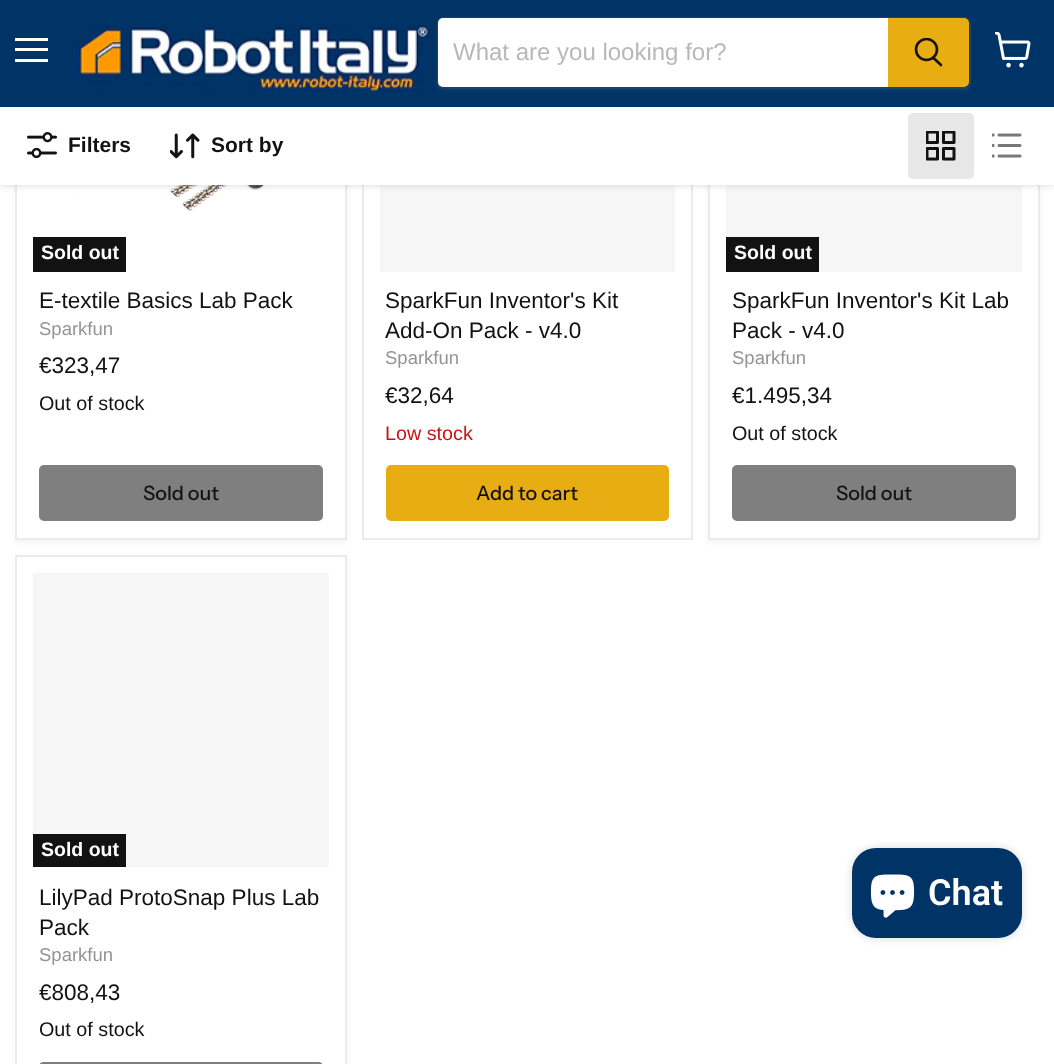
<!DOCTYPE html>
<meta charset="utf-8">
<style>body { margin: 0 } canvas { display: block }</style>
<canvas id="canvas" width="1054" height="1064"></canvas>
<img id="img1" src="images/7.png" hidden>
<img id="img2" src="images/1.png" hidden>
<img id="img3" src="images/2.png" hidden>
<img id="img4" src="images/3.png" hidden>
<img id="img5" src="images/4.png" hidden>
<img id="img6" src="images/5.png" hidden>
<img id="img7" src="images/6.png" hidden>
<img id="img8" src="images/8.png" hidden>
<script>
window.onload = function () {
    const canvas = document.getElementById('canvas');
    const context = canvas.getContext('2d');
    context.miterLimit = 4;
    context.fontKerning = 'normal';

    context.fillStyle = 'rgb(255, 255, 255)';
    context.fillRect(0, 0, 1054, 1064);
    context.fillStyle = 'rgba(128, 128, 128, 0.11)';
    context.filter = 'blur(3px)';
    context.beginPath();
    context.rect(15, -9, 332, 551);
    context.fill();
    context.filter = 'none';
    context.fillStyle = 'rgb(255, 255, 255)';
    context.fillRect(17, 185, 328, 353);
    context.strokeStyle = 'rgb(235, 235, 235)';
    context.lineWidth = 2;
    context.strokeRect(16, -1, 330, 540);
    context.drawImage(document.getElementById('img1'), 36, 185, 287, 26);
    context.strokeRect(363, -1, 329, 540);
    context.fillStyle = 'rgb(246, 246, 246)';
    context.fillRect(380, 185, 295, 87);
    context.fillStyle = 'rgba(128, 128, 128, 0.11)';
    context.filter = 'blur(3px)';
    context.beginPath();
    context.rect(708, -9, 332, 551);
    context.fill();
    context.filter = 'none';
    context.fillStyle = 'rgb(255, 255, 255)';
    context.fillRect(710, 185, 328, 353);
    context.strokeRect(709, -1, 330, 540);
    context.fillStyle = 'rgb(246, 246, 246)';
    context.fillRect(726, 185, 296, 87);
    context.fillStyle = 'rgba(128, 128, 128, 0.25)';
    context.filter = 'blur(3px)';
    context.beginPath();
    context.rect(0, 108, 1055, 78);
    context.fill();
    context.filter = 'none';
    context.fillStyle = 'rgb(0, 51, 102)';
    context.fillRect(0, 0, 1054, 107);
    context.fillStyle = 'rgb(255, 255, 255)';
    context.fillRect(15, 38, 33, 3);
    context.fillRect(15, 48, 33, 3);
    context.fillRect(15, 59, 33, 3);
    context.drawImage(document.getElementById('img2'), 77, 24, 356, 67);
    context.save();
    context.beginPath();
    context.moveTo(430, 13);
    context.lineTo(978, 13);
    context.lineTo(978, 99);
    context.lineTo(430, 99);
    context.closePath();
    context.moveTo(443, 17);
    context.lineTo(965, 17);
    context.bezierCurveTo(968.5, 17, 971, 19.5, 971, 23);
    context.lineTo(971, 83);
    context.bezierCurveTo(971, 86.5, 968.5, 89, 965, 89);
    context.lineTo(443, 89);
    context.bezierCurveTo(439.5, 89, 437, 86.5, 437, 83);
    context.lineTo(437, 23);
    context.bezierCurveTo(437, 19.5, 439.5, 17, 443, 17);
    context.closePath();
    context.clip('evenodd');
    context.fillStyle = 'rgba(128, 128, 128, 0.11)';
    context.filter = 'blur(2px)';
    context.beginPath();
    context.roundRect(437, 20, 534, 72, 6);
    context.fill();
    context.filter = 'none';
    context.restore();
    context.beginPath();
    context.roundRect(438, 18, 532, 70, 5);
    context.strokeStyle = 'rgba(128, 128, 128, 0.2)';
    context.stroke();
    context.beginPath();
    context.roundRect(438, 18, 450, 69, [5, 0, 0, 5]);
    context.fill();
    context.fillStyle = 'rgb(233, 173, 20)';
    context.beginPath();
    context.roundRect(889, 19, 79, 67, [0, 4, 4, 0]);
    context.fill();
    context.strokeStyle = 'rgb(233, 173, 20)';
    context.stroke();
    context.beginPath();
    context.moveTo(941, 65);
    context.lineTo(933.5, 58);
    context.strokeStyle = 'rgb(18, 18, 18)';
    context.lineWidth = 2.6;
    context.lineCap = 'round';
    context.stroke();
    context.save();
    context.beginPath();
    context.rect(914, 38, 30, 31);
    context.clip();
    context.beginPath();
    context.arc(926.5, 49.5, 10.5, 0, 2 * Math.PI);
    context.stroke();
    context.restore();
    context.drawImage(document.getElementById('img3'), 995, 32, 36, 36);
    context.fillStyle = 'rgb(255, 255, 255)';
    context.fillRect(0, 107, 1054, 78);
    context.drawImage(document.getElementById('img4'), 27, 132, 30, 27);
    context.drawImage(document.getElementById('img5'), 170, 133, 30, 26);
    context.fillStyle = 'rgb(231, 231, 231)';
    context.beginPath();
    context.roundRect(908, 113, 66, 66, 5);
    context.fill();
    context.drawImage(document.getElementById('img6'), 926, 131, 30, 30);
    context.drawImage(document.getElementById('img7'), 992, 133, 30, 25);
    context.fillStyle = 'rgb(18, 18, 18)';
    context.fillRect(33, 237, 93, 35);
    context.fillStyle = 'rgb(127, 127, 127)';
    context.beginPath();
    context.roundRect(40, 466, 282, 54, 4);
    context.fill();
    context.strokeStyle = 'rgb(127, 127, 127)';
    context.lineWidth = 2;
    context.stroke();
    context.fillStyle = 'rgb(233, 173, 20)';
    context.beginPath();
    context.roundRect(387, 466, 281, 54, 4);
    context.fill();
    context.strokeStyle = 'rgb(233, 173, 20)';
    context.stroke();
    context.fillStyle = 'rgb(18, 18, 18)';
    context.fillRect(726, 237, 93, 35);
    context.fillStyle = 'rgb(127, 127, 127)';
    context.beginPath();
    context.roundRect(733, 466, 282, 54, 4);
    context.fill();
    context.strokeStyle = 'rgb(127, 127, 127)';
    context.stroke();
    context.fillStyle = 'rgba(128, 128, 128, 0.11)';
    context.filter = 'blur(3px)';
    context.beginPath();
    context.rect(15, 557, 332, 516);
    context.fill();
    context.filter = 'none';
    context.fillStyle = 'rgb(255, 255, 255)';
    context.beginPath();
    context.rect(16, 556, 330, 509);
    context.fill();
    context.strokeStyle = 'rgb(235, 235, 235)';
    context.stroke();
    context.fillStyle = 'rgb(246, 246, 246)';
    context.fillRect(33, 573, 296, 294);
    context.fillStyle = 'rgb(18, 18, 18)';
    context.fillRect(33, 834, 93, 33);
    context.beginPath();
    context.roundRect(40, 1063, 282, 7, 4);
    context.strokeStyle = 'rgb(127, 127, 127)';
    context.stroke();
    context.fillStyle = 'rgba(0, 0, 0, 0.15)';
    context.filter = 'blur(4px)';
    context.beginPath();
    context.roundRect(852, 848, 170, 90, 24);
    context.fill();
    context.filter = 'none';
    context.fillStyle = 'rgb(0, 51, 102)';
    context.beginPath();
    context.roundRect(852, 848, 170, 90, 24);
    context.fill();
    context.drawImage(document.getElementById('img8'), 870, 874, 45, 44);
    context.font = '24px Liberation Sans';
    context.fillStyle = 'rgb(184, 184, 184)';
    context.fillText('What are you looking for?', 453, 60);
    context.font = 'bold 21px Liberation Sans';
    context.fillStyle = 'rgb(18, 18, 18)';
    context.fillText('Filters', 68, 152);
    context.fillText('Sort by', 211, 152);
    context.font = 'bold 19.5px Liberation Sans';
    context.fillStyle = 'rgb(255, 255, 255)';
    context.fillText('Sold out', 41, 259);
    context.font = '22.5px Liberation Sans';
    context.fillStyle = 'rgb(18, 18, 18)';
    context.fillText('E-textile Basics Lab Pack', 39, 308);
    context.font = '18.5px Liberation Sans';
    context.fillStyle = 'rgb(148, 148, 148)';
    context.fillText('Sparkfun', 39, 335);
    context.font = '22.5px Liberation Sans';
    context.fillStyle = 'rgb(18, 18, 18)';
    context.fillText('€323,47', 39, 373);
    context.font = '19.75px Liberation Sans';
    context.fillText('Out of stock', 39, 410);
    context.font = '500 19.75px Instrument Sans';
    context.fillText('Sold out', 143, 500);
    context.font = '22.5px Liberation Sans';
    context.fillText('SparkFun Inventor\'s Kit', 385, 308);
    context.fillText('Add-On Pack - v4.0', 385, 338);
    context.font = '18.5px Liberation Sans';
    context.fillStyle = 'rgb(148, 148, 148)';
    context.fillText('Sparkfun', 385, 364);
    context.font = '22.5px Liberation Sans';
    context.fillStyle = 'rgb(18, 18, 18)';
    context.fillText('€32,64', 385, 403);
    context.font = '19.75px Liberation Sans';
    context.fillStyle = 'rgb(204, 19, 19)';
    context.fillText('Low stock', 385, 440);
    context.font = '500 19.75px Instrument Sans';
    context.fillStyle = 'rgb(18, 18, 18)';
    context.fillText('Add to cart', 476, 500);
    context.font = 'bold 19.5px Liberation Sans';
    context.fillStyle = 'rgb(255, 255, 255)';
    context.fillText('Sold out', 734, 259);
    context.font = '22.5px Liberation Sans';
    context.fillStyle = 'rgb(18, 18, 18)';
    context.fillText('SparkFun Inventor\'s Kit Lab', 732, 308);
    context.fillText('Pack - v4.0', 732, 338);
    context.font = '18.5px Liberation Sans';
    context.fillStyle = 'rgb(148, 148, 148)';
    context.fillText('Sparkfun', 732, 364);
    context.font = '22.5px Liberation Sans';
    context.fillStyle = 'rgb(18, 18, 18)';
    context.fillText('€1.495,34', 732, 403);
    context.font = '19.75px Liberation Sans';
    context.fillText('Out of stock', 732, 440);
    context.font = '500 19.75px Instrument Sans';
    context.fillText('Sold out', 836, 500);
    context.font = 'bold 19.5px Liberation Sans';
    context.fillStyle = 'rgb(255, 255, 255)';
    context.fillText('Sold out', 41, 856);
    context.font = '22.5px Liberation Sans';
    context.fillStyle = 'rgb(18, 18, 18)';
    context.fillText('LilyPad ProtoSnap Plus Lab', 39, 905);
    context.fillText('Pack', 39, 935);
    context.font = '18.5px Liberation Sans';
    context.fillStyle = 'rgb(148, 148, 148)';
    context.fillText('Sparkfun', 39, 961);
    context.font = '22.5px Liberation Sans';
    context.fillStyle = 'rgb(18, 18, 18)';
    context.fillText('€808,43', 39, 1000);
    context.font = '19.75px Liberation Sans';
    context.fillText('Out of stock', 39, 1036);
    context.font = '600 36px Roboto';
    context.fillStyle = 'rgb(255, 255, 255)';
    context.fillText('Chat', 928, 905);
};
</script>
